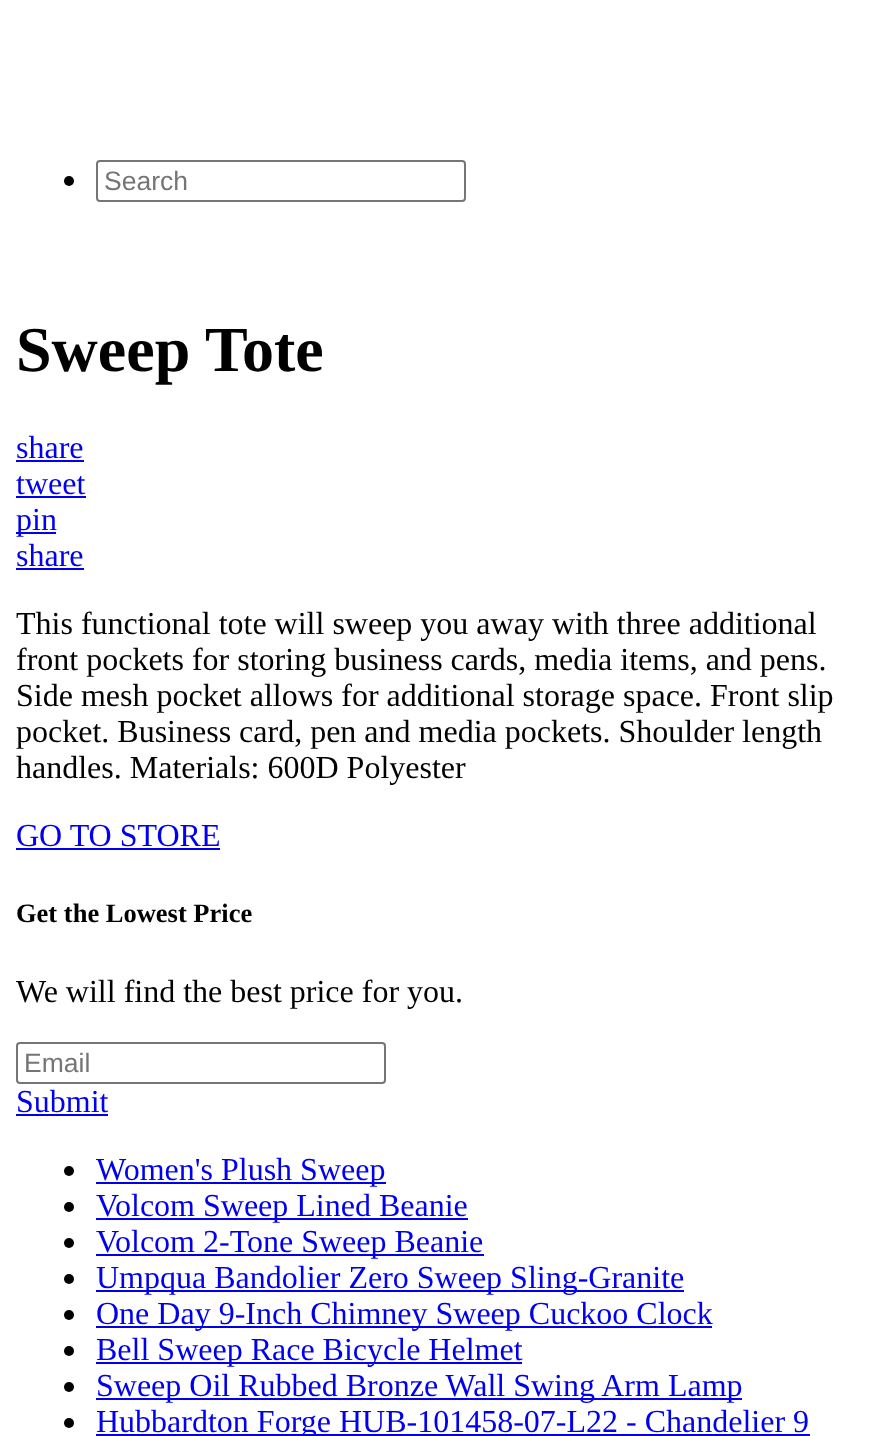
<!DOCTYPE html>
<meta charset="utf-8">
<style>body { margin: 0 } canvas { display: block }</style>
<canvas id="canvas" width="883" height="1436"></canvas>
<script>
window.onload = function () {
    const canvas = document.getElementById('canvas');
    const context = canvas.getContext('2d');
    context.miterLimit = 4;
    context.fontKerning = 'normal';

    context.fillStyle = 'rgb(255, 255, 255)';
    context.fillRect(0, 0, 883, 1436);
    context.fillStyle = 'rgb(0, 0, 0)';
    context.beginPath();
    context.arc(69, 181, 5, 0, 2 * Math.PI);
    context.fill();
    context.beginPath();
    context.roundRect(97, 161, 368, 40, 3);
    context.strokeStyle = 'rgb(118, 118, 118)';
    context.lineWidth = 2;
    context.stroke();
    context.fillStyle = 'rgb(0, 0, 238)';
    context.fillRect(16, 460, 68, 2);
    context.fillRect(16, 496, 70, 2);
    context.fillRect(16, 532, 40, 2);
    context.fillRect(16, 568, 68, 2);
    context.fillRect(16, 848, 204, 2);
    context.beginPath();
    context.roundRect(17, 1043, 368, 40, 3);
    context.stroke();
    context.fillRect(16, 1114, 92, 2);
    context.fillStyle = 'rgb(0, 0, 0)';
    context.beginPath();
    context.arc(69, 1171, 5, 0, 2 * Math.PI);
    context.fill();
    context.fillStyle = 'rgb(0, 0, 238)';
    context.fillRect(96, 1182, 290, 2);
    context.fillStyle = 'rgb(0, 0, 0)';
    context.beginPath();
    context.arc(69, 1207, 5, 0, 2 * Math.PI);
    context.fill();
    context.fillStyle = 'rgb(0, 0, 238)';
    context.fillRect(96, 1218, 372, 2);
    context.fillStyle = 'rgb(0, 0, 0)';
    context.beginPath();
    context.arc(69, 1243, 5, 0, 2 * Math.PI);
    context.fill();
    context.fillStyle = 'rgb(0, 0, 238)';
    context.fillRect(96, 1254, 388, 2);
    context.fillStyle = 'rgb(0, 0, 0)';
    context.beginPath();
    context.arc(69, 1279, 5, 0, 2 * Math.PI);
    context.fill();
    context.fillStyle = 'rgb(0, 0, 238)';
    context.fillRect(96, 1290, 588, 2);
    context.fillStyle = 'rgb(0, 0, 0)';
    context.beginPath();
    context.arc(69, 1315, 5, 0, 2 * Math.PI);
    context.fill();
    context.fillStyle = 'rgb(0, 0, 238)';
    context.fillRect(96, 1326, 616, 2);
    context.fillStyle = 'rgb(0, 0, 0)';
    context.beginPath();
    context.arc(69, 1351, 5, 0, 2 * Math.PI);
    context.fill();
    context.fillStyle = 'rgb(0, 0, 238)';
    context.fillRect(96, 1362, 426, 2);
    context.fillStyle = 'rgb(0, 0, 0)';
    context.beginPath();
    context.arc(69, 1387, 5, 0, 2 * Math.PI);
    context.fill();
    context.fillStyle = 'rgb(0, 0, 238)';
    context.fillRect(96, 1398, 646, 2);
    context.fillStyle = 'rgb(0, 0, 0)';
    context.beginPath();
    context.arc(69, 1423, 5, 0, 2 * Math.PI);
    context.fill();
    context.fillStyle = 'rgb(0, 0, 238)';
    context.fillRect(96, 1434, 714, 2);
    context.font = '26.5px Liberation Sans';
    context.fillStyle = 'rgb(117, 117, 117)';
    context.fillText('Search', 104, 190);
    context.font = 'bold 64px Liberation Serif';
    context.fillStyle = 'rgb(0, 0, 0)';
    context.fillText('Sweep Tote', 16, 371);
    context.font = '32px Liberation Serif';
    context.fillStyle = 'rgb(0, 0, 238)';
    context.fillText('share', 16, 458);
    context.fillText('tweet', 16, 494);
    context.fillText('pin', 16, 530);
    context.fillText('share', 16, 566);
    context.fillStyle = 'rgb(0, 0, 0)';
    context.fillText('This functional tote will sweep you away with three additional', 16, 634);
    context.fillText('front pockets for storing business cards, media items, and pens.', 16, 670);
    context.fillText('Side mesh pocket allows for additional storage space. Front slip', 16, 706);
    context.fillText('pocket. Business card, pen and media pockets. Shoulder length', 16, 742);
    context.fillText('handles. Materials: 600D Polyester', 16, 778);
    context.fillStyle = 'rgb(0, 0, 238)';
    context.fillText('GO TO STORE', 16, 846);
    context.font = 'bold 26.5px Liberation Serif';
    context.fillStyle = 'rgb(0, 0, 0)';
    context.fillText('Get the Lowest Price', 16, 922);
    context.font = '32px Liberation Serif';
    context.fillText('We will find the best price for you.', 16, 1002);
    context.font = '26.5px Liberation Sans';
    context.fillStyle = 'rgb(117, 117, 117)';
    context.fillText('Email', 24, 1072);
    context.font = '32px Liberation Serif';
    context.fillStyle = 'rgb(0, 0, 238)';
    context.fillText('Submit', 16, 1112);
    context.fillText('Women\'s Plush Sweep', 96, 1180);
    context.fillText('Volcom Sweep Lined Beanie', 96, 1216);
    context.fillText('Volcom 2-Tone Sweep Beanie', 96, 1252);
    context.fillText('Umpqua Bandolier Zero Sweep Sling-Granite', 96, 1288);
    context.fillText('One Day 9-Inch Chimney Sweep Cuckoo Clock', 96, 1324);
    context.fillText('Bell Sweep Race Bicycle Helmet', 96, 1360);
    context.fillText('Sweep Oil Rubbed Bronze Wall Swing Arm Lamp', 96, 1396);
    context.fillText('Hubbardton Forge HUB-101458-07-L22 - Chandelier 9', 96, 1432);
};
</script>
